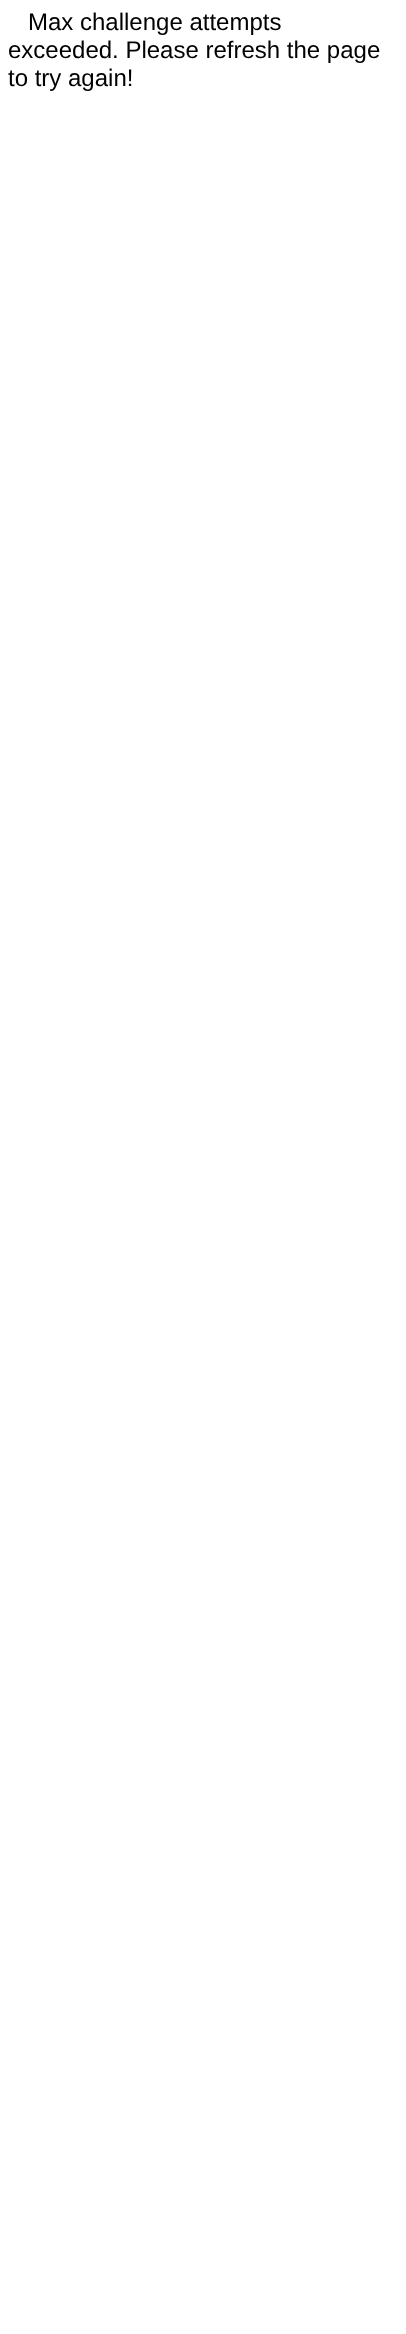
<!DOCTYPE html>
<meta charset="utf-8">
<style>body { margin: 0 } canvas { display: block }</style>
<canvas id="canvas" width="406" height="2334"></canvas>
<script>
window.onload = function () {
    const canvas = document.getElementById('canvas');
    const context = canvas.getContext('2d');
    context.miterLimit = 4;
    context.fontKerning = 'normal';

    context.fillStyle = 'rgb(255, 255, 255)';
    context.fillRect(0, 0, 406, 2334);
    context.font = '24px Liberation Sans';
    context.fillStyle = 'rgb(0, 0, 0)';
    context.fillText('Max challenge attempts', 28, 30);
    context.fillText('exceeded. Please refresh the page', 8, 58);
    context.fillText('to try again!', 8, 86);
};
</script>
